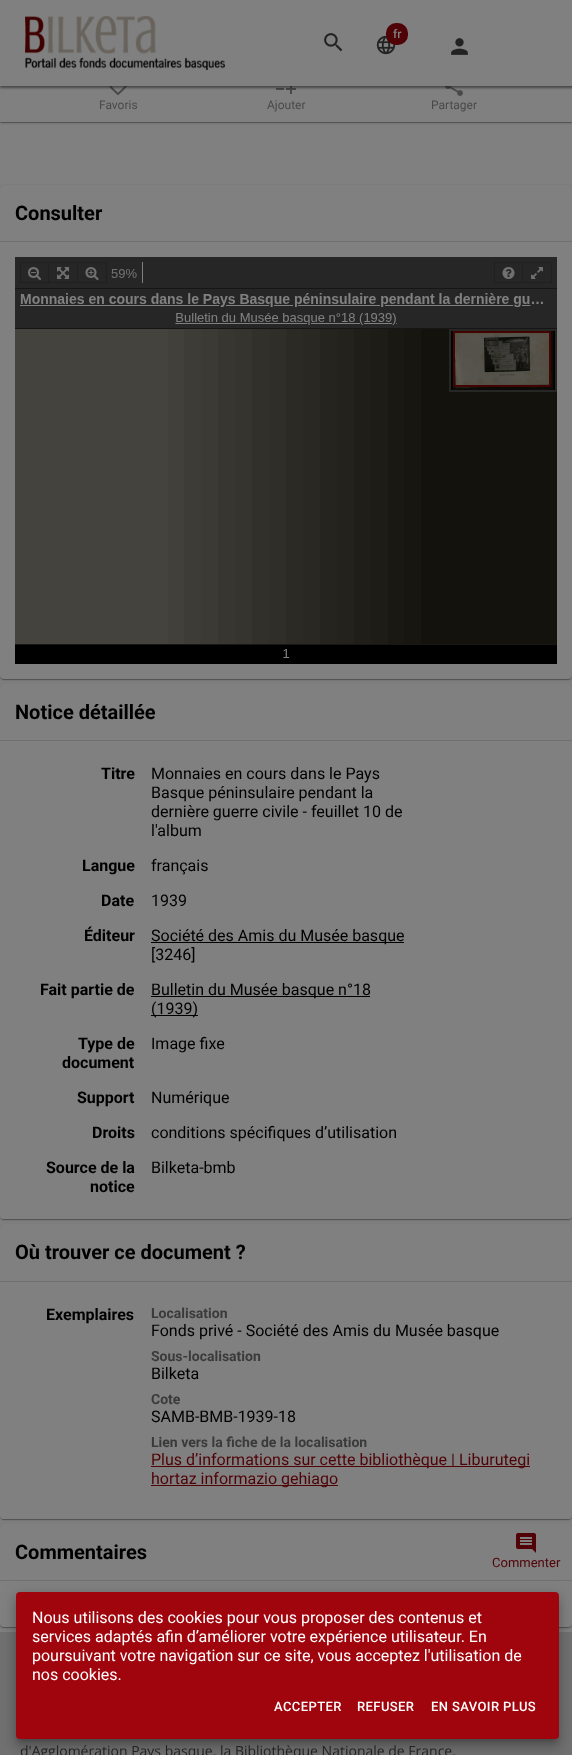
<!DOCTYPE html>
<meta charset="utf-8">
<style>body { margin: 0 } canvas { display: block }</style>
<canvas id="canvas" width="572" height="1755"></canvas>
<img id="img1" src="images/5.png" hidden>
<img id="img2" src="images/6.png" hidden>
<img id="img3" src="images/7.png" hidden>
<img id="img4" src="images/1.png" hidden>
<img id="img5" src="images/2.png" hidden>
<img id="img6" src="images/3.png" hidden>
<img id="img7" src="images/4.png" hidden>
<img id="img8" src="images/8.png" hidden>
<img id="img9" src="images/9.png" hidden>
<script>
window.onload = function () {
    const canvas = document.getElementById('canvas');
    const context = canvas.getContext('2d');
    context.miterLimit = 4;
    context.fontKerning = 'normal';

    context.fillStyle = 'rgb(128, 128, 128)';
    context.fillRect(0, 0, 572, 1755);
    context.save();
    context.beginPath();
    context.rect(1, 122, 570, 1);
    context.clip();
    context.fillStyle = 'rgba(0, 0, 0, 0.12)';
    context.filter = 'blur(0.5px)';
    context.beginPath();
    context.rect(1, -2, 570, 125);
    context.fill();
    context.filter = 'none';
    context.restore();
    context.save();
    context.beginPath();
    context.rect(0, 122, 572, 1);
    context.clip();
    context.fillStyle = 'rgba(0, 0, 0, 0.14)';
    context.filter = 'blur(0.5px)';
    context.beginPath();
    context.rect(0, -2, 572, 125);
    context.fill();
    context.filter = 'none';
    context.restore();
    context.save();
    context.beginPath();
    context.rect(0, 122, 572, 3);
    context.clip();
    context.fillStyle = 'rgba(0, 0, 0, 0.2)';
    context.filter = 'blur(1.5px)';
    context.beginPath();
    context.rect(0, -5, 572, 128);
    context.fill();
    context.filter = 'none';
    context.restore();
    context.drawImage(document.getElementById('img1'), 109, 86, 18, 10);
    context.drawImage(document.getElementById('img2'), 276, 86, 20, 8);
    context.drawImage(document.getElementById('img3'), 445, 86, 18, 10);
    context.fillStyle = 'rgba(17, 17, 17, 0.5)';
    context.filter = 'blur(1px)';
    context.beginPath();
    context.rect(0, -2, 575, 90);
    context.fill();
    context.filter = 'none';
    context.fillStyle = 'rgb(128, 128, 128)';
    context.fillRect(0, 0, 572, 86);
    context.drawImage(document.getElementById('img4'), 25, 16, 200, 54);
    context.drawImage(document.getElementById('img5'), 324, 33, 19, 19);
    context.drawImage(document.getElementById('img6'), 376, 35, 20, 20);
    context.fillStyle = 'rgb(80, 3, 7)';
    context.beginPath();
    context.roundRect(386, 23, 22, 22, 10);
    context.fill();
    context.drawImage(document.getElementById('img7'), 451, 38, 17, 17);
    context.fillStyle = 'rgba(0, 0, 0, 0.12)';
    context.filter = 'blur(0.5px)';
    context.beginPath();
    context.roundRect(1, 188, 570, 492, 3);
    context.fill();
    context.filter = 'none';
    context.fillStyle = 'rgba(0, 0, 0, 0.14)';
    context.filter = 'blur(0.5px)';
    context.beginPath();
    context.roundRect(0, 186, 572, 494, 4);
    context.fill();
    context.filter = 'none';
    context.fillStyle = 'rgba(0, 0, 0, 0.2)';
    context.filter = 'blur(1.5px)';
    context.beginPath();
    context.roundRect(0, 186, 572, 494, 4);
    context.fill();
    context.filter = 'none';
    context.fillStyle = 'rgb(128, 128, 128)';
    context.beginPath();
    context.roundRect(0, 185, 572, 494, 4);
    context.fill();
    context.fillStyle = 'rgb(111, 111, 111)';
    context.fillRect(0, 241, 572, 1);
    context.drawImage(document.getElementById('img8'), 15, 257, 542, 407);
    context.fillStyle = 'rgba(0, 0, 0, 0.12)';
    context.filter = 'blur(0.5px)';
    context.beginPath();
    context.roundRect(1, 687, 570, 533, 3);
    context.fill();
    context.filter = 'none';
    context.fillStyle = 'rgba(0, 0, 0, 0.14)';
    context.filter = 'blur(0.5px)';
    context.beginPath();
    context.roundRect(0, 685, 572, 535, 4);
    context.fill();
    context.filter = 'none';
    context.fillStyle = 'rgba(0, 0, 0, 0.2)';
    context.filter = 'blur(1.5px)';
    context.beginPath();
    context.roundRect(0, 685, 572, 535, 4);
    context.fill();
    context.filter = 'none';
    context.fillStyle = 'rgb(128, 128, 128)';
    context.beginPath();
    context.roundRect(0, 684, 572, 535, 4);
    context.fill();
    context.fillStyle = 'rgb(111, 111, 111)';
    context.fillRect(0, 740, 572, 1);
    context.fillStyle = 'rgb(128, 128, 128)';
    context.beginPath();
    context.roundRect(0, 741, 572, 478, [0, 0, 4, 4]);
    context.fill();
    context.fillStyle = 'rgb(0, 0, 0)';
    context.fillRect(151, 942, 253, 1);
    context.fillRect(151, 996, 219, 1);
    context.fillRect(151, 1015, 47, 1);
    context.fillStyle = 'rgba(0, 0, 0, 0.12)';
    context.filter = 'blur(0.5px)';
    context.beginPath();
    context.roundRect(1, 1227, 570, 293, 3);
    context.fill();
    context.filter = 'none';
    context.fillStyle = 'rgba(0, 0, 0, 0.14)';
    context.filter = 'blur(0.5px)';
    context.beginPath();
    context.roundRect(0, 1225, 572, 295, 4);
    context.fill();
    context.filter = 'none';
    context.fillStyle = 'rgba(0, 0, 0, 0.2)';
    context.filter = 'blur(1.5px)';
    context.beginPath();
    context.roundRect(0, 1225, 572, 295, 4);
    context.fill();
    context.filter = 'none';
    context.fillStyle = 'rgb(128, 128, 128)';
    context.beginPath();
    context.roundRect(0, 1224, 572, 295, 4);
    context.fill();
    context.fillStyle = 'rgb(111, 111, 111)';
    context.fillRect(0, 1281, 572, 1);
    context.fillStyle = 'rgb(128, 128, 128)';
    context.beginPath();
    context.roundRect(0, 1282, 572, 237, [0, 0, 4, 4]);
    context.fill();
    context.fillStyle = 'rgb(80, 3, 7)';
    context.fillRect(151, 1466, 379, 1);
    context.fillRect(151, 1485, 187, 1);
    context.fillStyle = 'rgba(0, 0, 0, 0.12)';
    context.filter = 'blur(0.5px)';
    context.beginPath();
    context.roundRect(1, 1527, 570, 101, 3);
    context.fill();
    context.filter = 'none';
    context.fillStyle = 'rgba(0, 0, 0, 0.14)';
    context.filter = 'blur(0.5px)';
    context.beginPath();
    context.roundRect(0, 1525, 572, 103, 4);
    context.fill();
    context.filter = 'none';
    context.fillStyle = 'rgb(112, 112, 112)';
    context.fillRect(0, 1632, 572, 123);
    context.fillStyle = 'rgba(0, 0, 0, 0.2)';
    context.filter = 'blur(1.5px)';
    context.beginPath();
    context.roundRect(0, 1525, 572, 103, 4);
    context.fill();
    context.filter = 'none';
    context.fillStyle = 'rgb(128, 128, 128)';
    context.beginPath();
    context.roundRect(0, 1524, 572, 103, 4);
    context.fill();
    context.fillStyle = 'rgb(112, 112, 112)';
    context.fillRect(0, 1580, 572, 1);
    context.fillStyle = 'rgb(128, 128, 128)';
    context.beginPath();
    context.roundRect(480, 1524, 92, 56, [0, 4, 0, 0]);
    context.fill();
    context.drawImage(document.getElementById('img9'), 516, 1533, 20, 20);
    context.fillStyle = 'rgba(0, 0, 0, 0.12)';
    context.filter = 'blur(7px)';
    context.beginPath();
    context.roundRect(14, 1593, 547, 151, 6);
    context.fill();
    context.filter = 'none';
    context.fillStyle = 'rgba(0, 0, 0, 0.14)';
    context.filter = 'blur(5px)';
    context.beginPath();
    context.roundRect(15, 1599, 545, 149, 5);
    context.fill();
    context.filter = 'none';
    context.fillStyle = 'rgba(0, 0, 0, 0.2)';
    context.filter = 'blur(2.5px)';
    context.beginPath();
    context.roundRect(19, 1600, 537, 141, 1);
    context.fill();
    context.filter = 'none';
    context.fillStyle = 'rgb(160, 5, 13)';
    context.beginPath();
    context.roundRect(16, 1592, 543, 147, 4);
    context.fill();
    context.font = '500 12px Roboto';
    context.fillStyle = 'rgb(128, 128, 128)';
    context.fillText('fr', 393, 38);
    context.font = '12px Roboto';
    context.fillStyle = 'rgb(73, 73, 73)';
    context.fillText('Favoris', 99, 109);
    context.fillText('Ajouter', 267, 109);
    context.fillText('Partager', 431, 109);
    context.font = 'bold 20px Roboto';
    context.fillStyle = 'rgb(0, 0, 0)';
    context.fillText('Consulter', 15, 220);
    context.fillText('Notice détaillée', 15, 719);
    context.font = 'bold 16px Roboto';
    context.fillText('Titre', 101, 779);
    context.font = '16px Roboto';
    context.fillText('Monnaies en cours dans le Pays', 151, 779);
    context.fillText('Basque péninsulaire pendant la', 151, 798);
    context.fillText('dernière guerre civile - feuillet 10 de', 151, 817);
    context.fillText('l\'album', 151, 836);
    context.font = 'bold 16px Roboto';
    context.fillText('Langue', 82, 871);
    context.font = '16px Roboto';
    context.fillText('français', 151, 871);
    context.font = 'bold 16px Roboto';
    context.fillText('Date', 101, 906);
    context.font = '16px Roboto';
    context.fillText('1939', 151, 906);
    context.font = 'bold 16px Roboto';
    context.fillText('Éditeur', 84, 941);
    context.font = '16px Roboto';
    context.fillText('Société des Amis du Musée basque', 151, 941);
    context.fillText('[3246]', 151, 960);
    context.font = 'bold 16px Roboto';
    context.fillText('Fait partie de', 40, 995);
    context.font = '16px Roboto';
    context.fillText('Bulletin du Musée basque n°18', 151, 995);
    context.fillText('(1939)', 151, 1014);
    context.font = 'bold 16px Roboto';
    context.fillText('Type de', 78, 1049);
    context.fillText('document', 62, 1068);
    context.font = '16px Roboto';
    context.fillText('Image fixe', 151, 1049);
    context.font = 'bold 16px Roboto';
    context.fillText('Support', 77, 1103);
    context.font = '16px Roboto';
    context.fillText('Numérique', 151, 1103);
    context.font = 'bold 16px Roboto';
    context.fillText('Droits', 92, 1138);
    context.font = '16px Roboto';
    context.fillText('conditions spécifiques d’utilisation', 151, 1138);
    context.font = 'bold 16px Roboto';
    context.fillText('Source de la', 46, 1173);
    context.fillText('notice', 90, 1192);
    context.font = '16px Roboto';
    context.fillText('Bilketa-bmb', 151, 1173);
    context.font = 'bold 20px Roboto';
    context.fillText('Où trouver ce document ?', 15, 1259);
    context.font = 'bold 16px Roboto';
    context.fillText('Exemplaires', 46, 1320);
    context.font = 'bold 14px Roboto';
    context.fillStyle = 'rgb(58, 58, 58)';
    context.fillText('Localisation', 151, 1318);
    context.font = '16px Roboto';
    context.fillStyle = 'rgb(0, 0, 0)';
    context.fillText('Fonds privé - Société des Amis du Musée basque', 151, 1336);
    context.font = 'bold 14px Roboto';
    context.fillStyle = 'rgb(58, 58, 58)';
    context.fillText('Sous-localisation', 151, 1361);
    context.font = '16px Roboto';
    context.fillStyle = 'rgb(0, 0, 0)';
    context.fillText('Bilketa', 151, 1379);
    context.font = 'bold 14px Roboto';
    context.fillStyle = 'rgb(58, 58, 58)';
    context.fillText('Cote', 151, 1404);
    context.font = '16px Roboto';
    context.fillStyle = 'rgb(0, 0, 0)';
    context.fillText('SAMB-BMB-1939-18', 151, 1422);
    context.font = 'bold 14px Roboto';
    context.fillStyle = 'rgb(58, 58, 58)';
    context.fillText('Lien vers la fiche de la localisation', 151, 1447);
    context.font = '16px Roboto';
    context.fillStyle = 'rgb(80, 3, 7)';
    context.fillText('Plus d’informations sur cette bibliothèque | Liburutegi', 151, 1465);
    context.fillText('hortaz informazio gehiago', 151, 1484);
    context.font = 'bold 20px Roboto';
    context.fillStyle = 'rgb(0, 0, 0)';
    context.fillText('Commentaires', 15, 1559);
    context.font = '13px Roboto';
    context.fillStyle = 'rgb(80, 3, 7)';
    context.fillText('Commenter', 492, 1567);
    context.font = '14px Open Sans';
    context.fillStyle = 'rgb(34, 34, 35)';
    context.fillText('d\'Agglomération Pays basque, la Bibliothèque Nationale de France.', 20, 1756);
    context.font = '16px Roboto';
    context.fillStyle = 'rgb(255, 255, 255)';
    context.fillText('Nous utilisons des cookies pour vous proposer des contenus et', 32, 1623);
    context.fillText('services adaptés afin d’améliorer votre expérience utilisateur. En', 32, 1642);
    context.fillText('poursuivant votre navigation sur ce site, vous acceptez l\'utilisation de', 32, 1661);
    context.fillText('nos cookies.', 32, 1680);
    context.letterSpacing = '0.4px';
    context.font = '500 13px Roboto';
    context.fillText('ACCEPTER', 274, 1711);
    context.fillText('REFUSER', 357, 1711);
    context.fillText('EN SAVOIR PLUS', 431, 1711);
};
</script>
